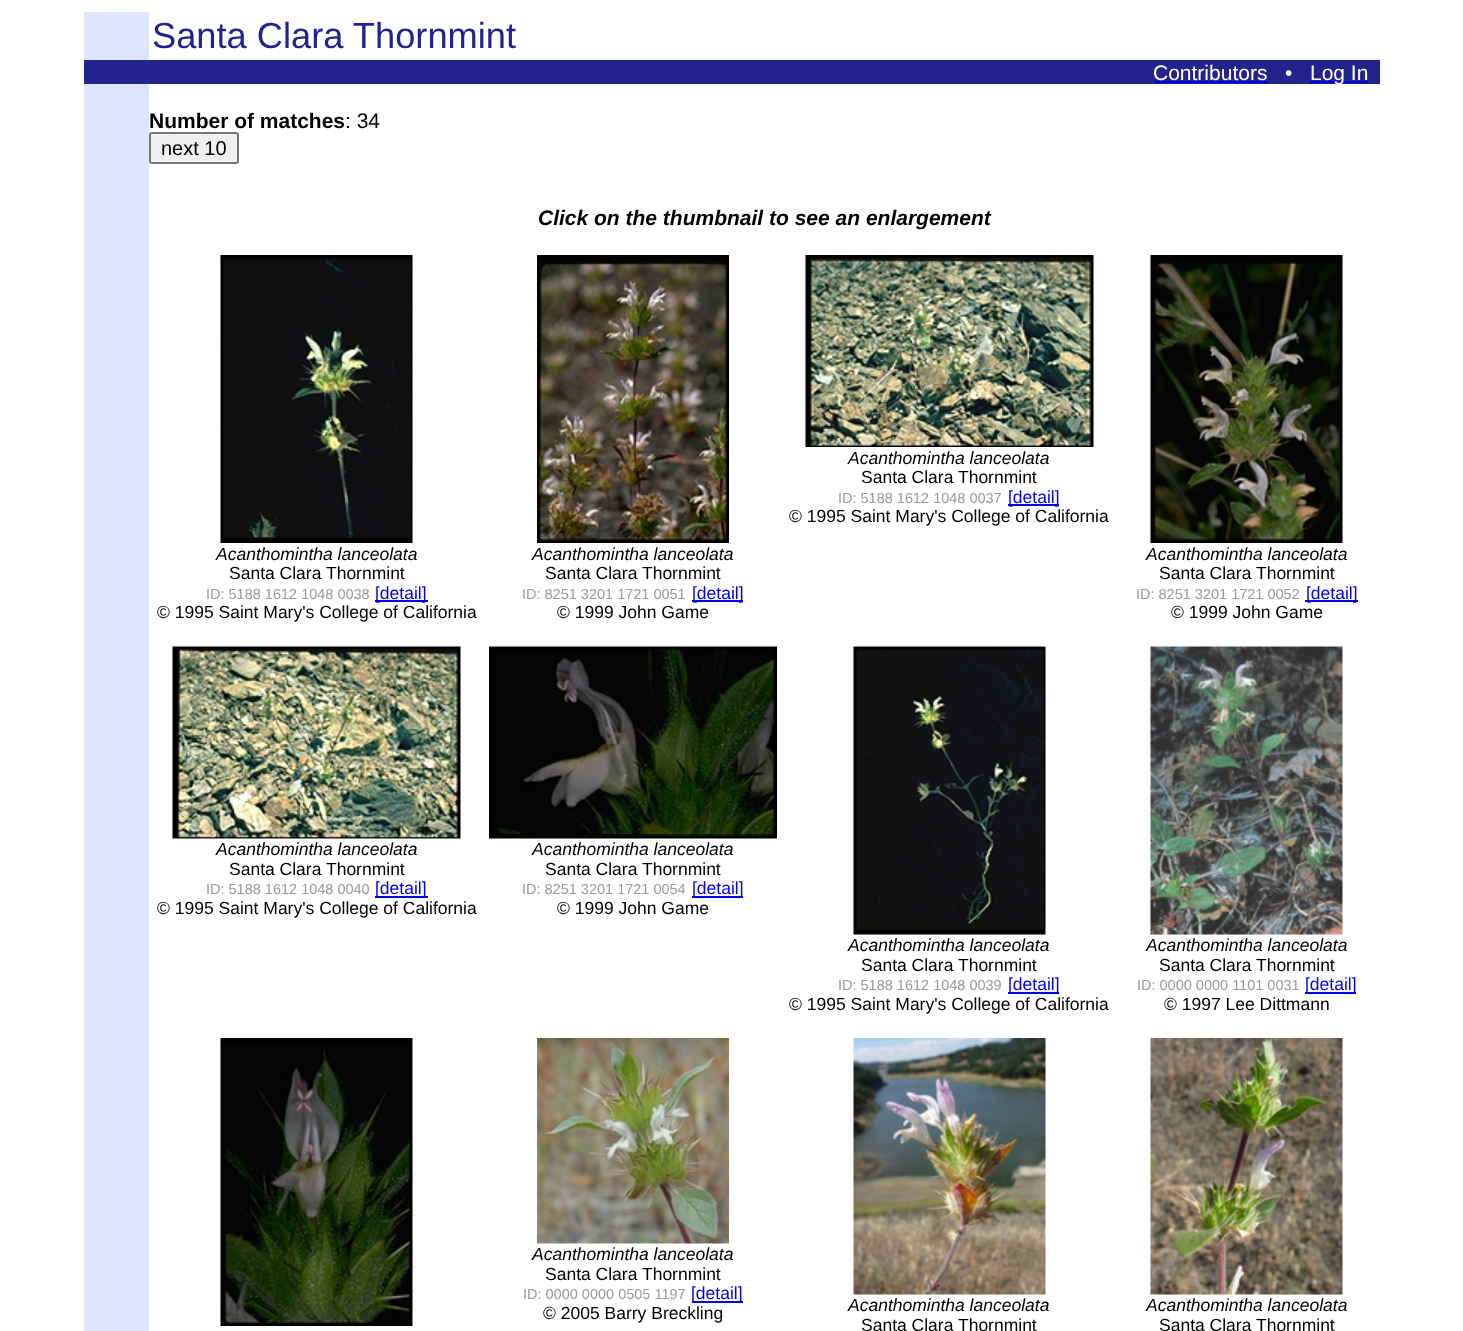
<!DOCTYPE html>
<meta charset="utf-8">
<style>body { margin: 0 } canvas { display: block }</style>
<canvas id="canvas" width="1463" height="1331"></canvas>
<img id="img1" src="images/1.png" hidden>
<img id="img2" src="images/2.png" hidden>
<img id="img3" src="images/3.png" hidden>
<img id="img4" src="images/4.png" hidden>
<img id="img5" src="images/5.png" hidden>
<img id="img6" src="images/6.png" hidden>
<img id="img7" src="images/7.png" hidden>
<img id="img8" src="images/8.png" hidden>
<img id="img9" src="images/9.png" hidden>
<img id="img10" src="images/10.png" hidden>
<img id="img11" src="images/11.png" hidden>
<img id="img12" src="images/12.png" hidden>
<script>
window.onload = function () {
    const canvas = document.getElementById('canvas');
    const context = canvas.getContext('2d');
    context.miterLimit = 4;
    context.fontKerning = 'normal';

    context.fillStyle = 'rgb(255, 255, 255)';
    context.fillRect(0, 0, 1463, 1331);
    context.fillStyle = 'rgb(223, 229, 250)';
    context.fillRect(84, 12, 65, 48);
    context.fillStyle = 'rgb(35, 35, 142)';
    context.fillRect(84, 60, 1296, 24);
    context.fillStyle = 'rgb(0, 0, 238)';
    context.fillRect(1154, 81, 114, 2);
    context.fillRect(1310, 81, 58, 2);
    context.fillStyle = 'rgb(223, 229, 250)';
    context.fillRect(84, 84, 65, 1247);
    context.fillStyle = 'rgb(239, 239, 239)';
    context.beginPath();
    context.roundRect(150, 133, 88, 30, 2);
    context.fill();
    context.strokeStyle = 'rgb(118, 118, 118)';
    context.lineWidth = 2;
    context.stroke();
    context.drawImage(document.getElementById('img1'), 805, 255, 289, 192);
    context.fillStyle = 'rgb(0, 0, 238)';
    context.fillRect(1008, 504, 51, 2);
    context.drawImage(document.getElementById('img2'), 220, 255, 193, 288);
    context.fillRect(375, 600, 53, 2);
    context.drawImage(document.getElementById('img3'), 537, 255, 192, 288);
    context.fillRect(692, 600, 51, 2);
    context.drawImage(document.getElementById('img4'), 1150, 255, 193, 288);
    context.fillRect(1305, 600, 53, 2);
    context.drawImage(document.getElementById('img5'), 172, 646, 289, 193);
    context.fillRect(375, 896, 53, 2);
    context.drawImage(document.getElementById('img6'), 489, 646, 288, 193);
    context.fillRect(692, 896, 51, 2);
    context.drawImage(document.getElementById('img7'), 853, 646, 193, 289);
    context.fillRect(1008, 992, 51, 2);
    context.drawImage(document.getElementById('img8'), 1150, 646, 193, 289);
    context.fillRect(1305, 992, 51, 2);
    context.drawImage(document.getElementById('img9'), 220, 1038, 193, 288);
    context.drawImage(document.getElementById('img10'), 537, 1038, 192, 206);
    context.fillRect(692, 1301, 51, 2);
    context.drawImage(document.getElementById('img11'), 853, 1038, 193, 257);
    context.drawImage(document.getElementById('img12'), 1150, 1038, 193, 257);
    context.font = '36.25px Liberation Sans';
    context.fillStyle = 'rgb(35, 35, 142)';
    context.fillText('Santa Clara Thornmint', 152, 48);
    context.font = '21px Liberation Sans';
    context.fillStyle = 'rgb(255, 255, 255)';
    context.fillText('Contributors', 1153, 80);
    context.fillText('•', 1285, 80);
    context.fillText('Log In', 1310, 80);
    context.font = 'bold 21px Liberation Sans';
    context.fillStyle = 'rgb(0, 0, 0)';
    context.fillText('Number of matches', 149, 128);
    context.font = '21px Liberation Sans';
    context.fillText(': 34', 345, 128);
    context.font = '20px Liberation Sans';
    context.fillText('next 10', 161, 155);
    context.font = 'italic bold 21px Liberation Sans';
    context.fillText('Click on the thumbnail to see an enlargement', 538, 225);
    context.font = 'italic 17.5px Liberation Sans';
    context.fillText('Acanthomintha lanceolata', 848, 464);
    context.font = '17.5px Liberation Sans';
    context.fillText('Santa Clara Thornmint', 861, 483);
    context.font = '14.5px Liberation Sans';
    context.fillStyle = 'rgb(153, 153, 153)';
    context.fillText('ID: 5188 1612 1048 0037', 838, 503);
    context.font = '17.5px Liberation Sans';
    context.fillStyle = 'rgb(0, 0, 238)';
    context.fillText('[detail]', 1008, 503);
    context.fillStyle = 'rgb(0, 0, 0)';
    context.fillText('© 1995 Saint Mary\'s College of California', 789, 522);
    context.font = 'italic 17.5px Liberation Sans';
    context.fillText('Acanthomintha lanceolata', 216, 560);
    context.font = '17.5px Liberation Sans';
    context.fillText('Santa Clara Thornmint', 229, 579);
    context.font = '14.5px Liberation Sans';
    context.fillStyle = 'rgb(153, 153, 153)';
    context.fillText('ID: 5188 1612 1048 0038', 206, 599);
    context.font = '17.5px Liberation Sans';
    context.fillStyle = 'rgb(0, 0, 238)';
    context.fillText('[detail]', 375, 599);
    context.fillStyle = 'rgb(0, 0, 0)';
    context.fillText('© 1995 Saint Mary\'s College of California', 157, 618);
    context.font = 'italic 17.5px Liberation Sans';
    context.fillText('Acanthomintha lanceolata', 532, 560);
    context.font = '17.5px Liberation Sans';
    context.fillText('Santa Clara Thornmint', 545, 579);
    context.font = '14.5px Liberation Sans';
    context.fillStyle = 'rgb(153, 153, 153)';
    context.fillText('ID: 8251 3201 1721 0051', 522, 599);
    context.font = '17.5px Liberation Sans';
    context.fillStyle = 'rgb(0, 0, 238)';
    context.fillText('[detail]', 692, 599);
    context.fillStyle = 'rgb(0, 0, 0)';
    context.fillText('© 1999 John Game', 557, 618);
    context.font = 'italic 17.5px Liberation Sans';
    context.fillText('Acanthomintha lanceolata', 1146, 560);
    context.font = '17.5px Liberation Sans';
    context.fillText('Santa Clara Thornmint', 1159, 579);
    context.font = '14.5px Liberation Sans';
    context.fillStyle = 'rgb(153, 153, 153)';
    context.fillText('ID: 8251 3201 1721 0052', 1136, 599);
    context.font = '17.5px Liberation Sans';
    context.fillStyle = 'rgb(0, 0, 238)';
    context.fillText('[detail]', 1306, 599);
    context.fillStyle = 'rgb(0, 0, 0)';
    context.fillText('© 1999 John Game', 1171, 618);
    context.font = 'italic 17.5px Liberation Sans';
    context.fillText('Acanthomintha lanceolata', 216, 855);
    context.font = '17.5px Liberation Sans';
    context.fillText('Santa Clara Thornmint', 229, 875);
    context.font = '14.5px Liberation Sans';
    context.fillStyle = 'rgb(153, 153, 153)';
    context.fillText('ID: 5188 1612 1048 0040', 206, 894);
    context.font = '17.5px Liberation Sans';
    context.fillStyle = 'rgb(0, 0, 238)';
    context.fillText('[detail]', 375, 894);
    context.fillStyle = 'rgb(0, 0, 0)';
    context.fillText('© 1995 Saint Mary\'s College of California', 157, 914);
    context.font = 'italic 17.5px Liberation Sans';
    context.fillText('Acanthomintha lanceolata', 532, 855);
    context.font = '17.5px Liberation Sans';
    context.fillText('Santa Clara Thornmint', 545, 875);
    context.font = '14.5px Liberation Sans';
    context.fillStyle = 'rgb(153, 153, 153)';
    context.fillText('ID: 8251 3201 1721 0054', 522, 894);
    context.font = '17.5px Liberation Sans';
    context.fillStyle = 'rgb(0, 0, 238)';
    context.fillText('[detail]', 692, 894);
    context.fillStyle = 'rgb(0, 0, 0)';
    context.fillText('© 1999 John Game', 557, 914);
    context.font = 'italic 17.5px Liberation Sans';
    context.fillText('Acanthomintha lanceolata', 848, 951);
    context.font = '17.5px Liberation Sans';
    context.fillText('Santa Clara Thornmint', 861, 971);
    context.font = '14.5px Liberation Sans';
    context.fillStyle = 'rgb(153, 153, 153)';
    context.fillText('ID: 5188 1612 1048 0039', 838, 990);
    context.font = '17.5px Liberation Sans';
    context.fillStyle = 'rgb(0, 0, 238)';
    context.fillText('[detail]', 1008, 990);
    context.fillStyle = 'rgb(0, 0, 0)';
    context.fillText('© 1995 Saint Mary\'s College of California', 789, 1010);
    context.font = 'italic 17.5px Liberation Sans';
    context.fillText('Acanthomintha lanceolata', 1146, 951);
    context.font = '17.5px Liberation Sans';
    context.fillText('Santa Clara Thornmint', 1159, 971);
    context.font = '14.5px Liberation Sans';
    context.fillStyle = 'rgb(153, 153, 153)';
    context.fillText('ID: 0000 0000 1101 0031', 1137, 990);
    context.font = '17.5px Liberation Sans';
    context.fillStyle = 'rgb(0, 0, 238)';
    context.fillText('[detail]', 1305, 990);
    context.fillStyle = 'rgb(0, 0, 0)';
    context.fillText('© 1997 Lee Dittmann', 1164, 1010);
    context.font = 'italic 17.5px Liberation Sans';
    context.fillText('Acanthomintha lanceolata', 532, 1260);
    context.font = '17.5px Liberation Sans';
    context.fillText('Santa Clara Thornmint', 545, 1280);
    context.font = '14.5px Liberation Sans';
    context.fillStyle = 'rgb(153, 153, 153)';
    context.fillText('ID: 0000 0000 0505 1197', 523, 1299);
    context.font = '17.5px Liberation Sans';
    context.fillStyle = 'rgb(0, 0, 238)';
    context.fillText('[detail]', 691, 1299);
    context.fillStyle = 'rgb(0, 0, 0)';
    context.fillText('© 2005 Barry Breckling', 543, 1319);
    context.font = 'italic 17.5px Liberation Sans';
    context.fillText('Acanthomintha lanceolata', 848, 1311);
    context.font = '17.5px Liberation Sans';
    context.fillText('Santa Clara Thornmint', 861, 1331);
    context.font = 'italic 17.5px Liberation Sans';
    context.fillText('Acanthomintha lanceolata', 1146, 1311);
    context.font = '17.5px Liberation Sans';
    context.fillText('Santa Clara Thornmint', 1159, 1331);
};
</script>
